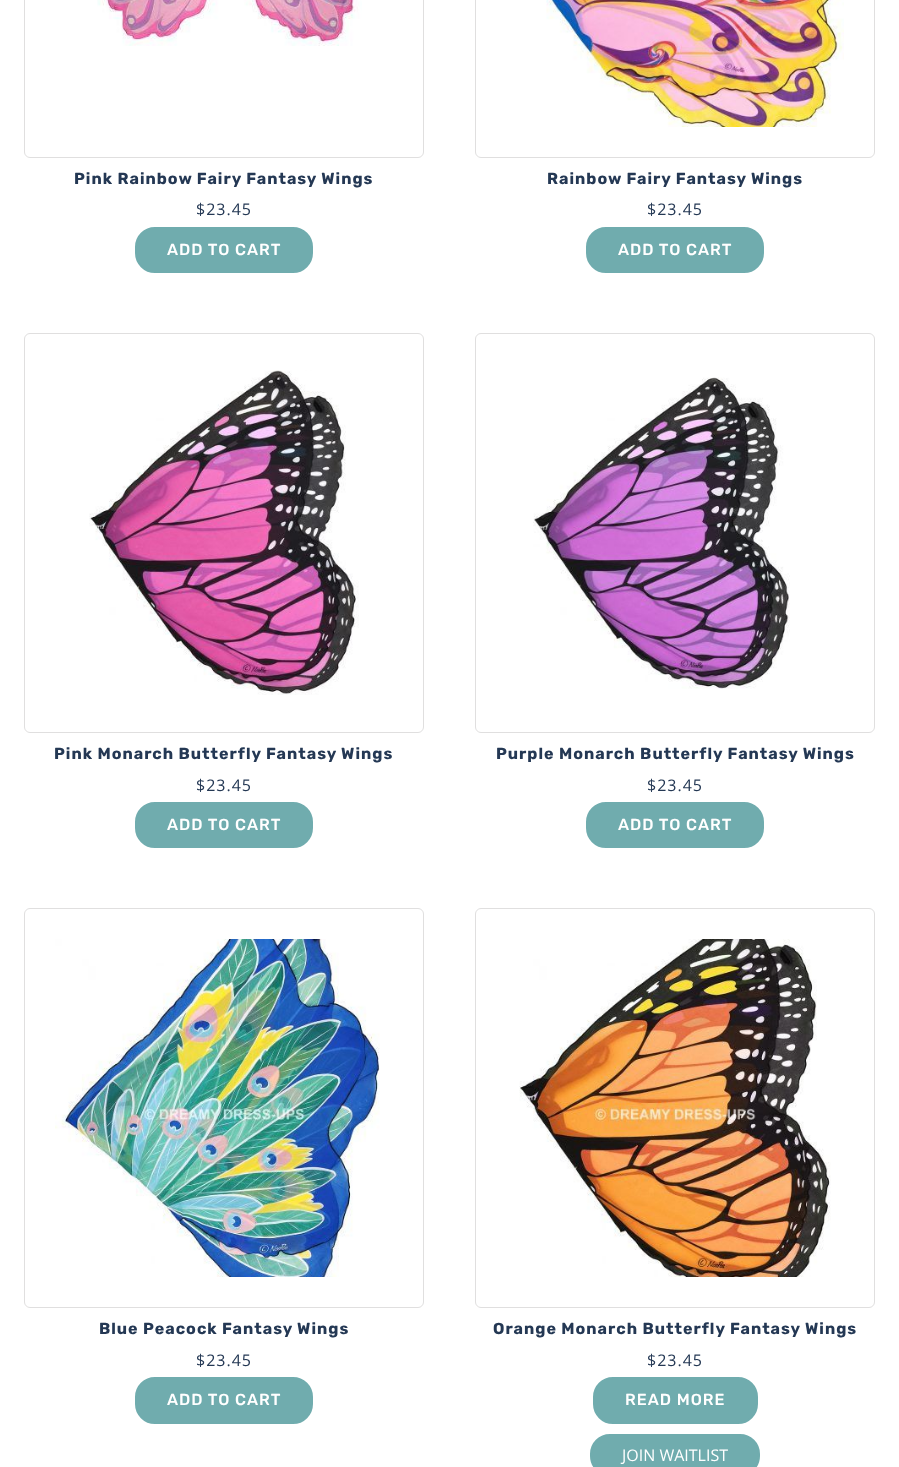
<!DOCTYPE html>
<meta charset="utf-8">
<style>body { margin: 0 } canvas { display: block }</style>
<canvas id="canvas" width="899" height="1467"></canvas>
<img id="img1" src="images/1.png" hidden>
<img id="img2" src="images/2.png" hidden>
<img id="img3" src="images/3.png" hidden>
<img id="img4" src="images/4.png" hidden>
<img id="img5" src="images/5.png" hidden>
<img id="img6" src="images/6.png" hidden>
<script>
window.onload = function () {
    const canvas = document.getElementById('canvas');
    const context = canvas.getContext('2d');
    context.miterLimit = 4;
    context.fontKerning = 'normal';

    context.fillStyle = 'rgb(255, 255, 255)';
    context.fillRect(0, 0, 899, 1467);
    context.beginPath();
    context.roundRect(24.5, -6.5, 399, 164, 5.5);
    context.strokeStyle = 'rgb(224, 223, 223)';
    context.stroke();
    context.drawImage(document.getElementById('img1'), 97, 0, 265, 46);
    context.fillStyle = 'rgb(112, 172, 174)';
    context.beginPath();
    context.roundRect(136, 228, 176, 44, 19);
    context.fill();
    context.strokeStyle = 'rgb(112, 172, 174)';
    context.lineWidth = 2;
    context.stroke();
    context.beginPath();
    context.roundRect(475.5, -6.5, 399, 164, 5.5);
    context.strokeStyle = 'rgb(224, 223, 223)';
    context.lineWidth = 1;
    context.stroke();
    context.drawImage(document.getElementById('img2'), 546, 0, 298, 127);
    context.beginPath();
    context.roundRect(587, 228, 176, 44, 19);
    context.fill();
    context.strokeStyle = 'rgb(112, 172, 174)';
    context.lineWidth = 2;
    context.stroke();
    context.beginPath();
    context.roundRect(24.5, 333.5, 399, 399, 5.5);
    context.strokeStyle = 'rgb(224, 223, 223)';
    context.lineWidth = 1;
    context.stroke();
    context.drawImage(document.getElementById('img3'), 89, 370, 270, 325);
    context.beginPath();
    context.roundRect(136, 803, 176, 44, 19);
    context.fill();
    context.strokeStyle = 'rgb(112, 172, 174)';
    context.lineWidth = 2;
    context.stroke();
    context.beginPath();
    context.roundRect(475.5, 333.5, 399, 399, 5.5);
    context.strokeStyle = 'rgb(224, 223, 223)';
    context.lineWidth = 1;
    context.stroke();
    context.drawImage(document.getElementById('img4'), 533, 377, 257, 312);
    context.beginPath();
    context.roundRect(587, 803, 176, 44, 19);
    context.fill();
    context.strokeStyle = 'rgb(112, 172, 174)';
    context.lineWidth = 2;
    context.stroke();
    context.beginPath();
    context.roundRect(24.5, 908.5, 399, 399, 5.5);
    context.strokeStyle = 'rgb(224, 223, 223)';
    context.lineWidth = 1;
    context.stroke();
    context.drawImage(document.getElementById('img5'), 55, 939, 325, 338);
    context.beginPath();
    context.roundRect(136, 1378, 176, 45, 19);
    context.fill();
    context.strokeStyle = 'rgb(112, 172, 174)';
    context.lineWidth = 2;
    context.stroke();
    context.beginPath();
    context.roundRect(475.5, 908.5, 399, 399, 5.5);
    context.strokeStyle = 'rgb(224, 223, 223)';
    context.lineWidth = 1;
    context.stroke();
    context.drawImage(document.getElementById('img6'), 519, 939, 312, 338);
    context.beginPath();
    context.roundRect(594, 1378, 163, 45, 19);
    context.fill();
    context.strokeStyle = 'rgb(112, 172, 174)';
    context.lineWidth = 2;
    context.stroke();
    context.beginPath();
    context.roundRect(591, 1435, 168, 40, 19);
    context.fill();
    context.stroke();
    context.letterSpacing = '1px';
    context.font = 'bold 16px Rubik';
    context.fillStyle = 'rgb(36, 56, 84)';
    context.fillText('Pink Rainbow Fairy Fantasy Wings', 74, 184);
    context.font = '16px Open Sans';
    context.fillText('$23.45', 196, 215);
    context.font = '500 16px Rubik';
    context.fillStyle = 'rgb(255, 255, 255)';
    context.fillText('ADD TO CART', 167, 255);
    context.font = 'bold 16px Rubik';
    context.fillStyle = 'rgb(36, 56, 84)';
    context.fillText('Rainbow Fairy Fantasy Wings', 547, 184);
    context.font = '16px Open Sans';
    context.fillText('$23.45', 647, 215);
    context.font = '500 16px Rubik';
    context.fillStyle = 'rgb(255, 255, 255)';
    context.fillText('ADD TO CART', 618, 255);
    context.font = 'bold 16px Rubik';
    context.fillStyle = 'rgb(36, 56, 84)';
    context.fillText('Pink Monarch Butterfly Fantasy Wings', 54, 759);
    context.font = '16px Open Sans';
    context.fillText('$23.45', 196, 791);
    context.font = '500 16px Rubik';
    context.fillStyle = 'rgb(255, 255, 255)';
    context.fillText('ADD TO CART', 167, 830);
    context.font = 'bold 16px Rubik';
    context.fillStyle = 'rgb(36, 56, 84)';
    context.fillText('Purple Monarch Butterfly Fantasy Wings', 496, 759);
    context.font = '16px Open Sans';
    context.fillText('$23.45', 647, 791);
    context.font = '500 16px Rubik';
    context.fillStyle = 'rgb(255, 255, 255)';
    context.fillText('ADD TO CART', 618, 830);
    context.font = 'bold 16px Rubik';
    context.fillStyle = 'rgb(36, 56, 84)';
    context.fillText('Blue Peacock Fantasy Wings', 99, 1334);
    context.font = '16px Open Sans';
    context.fillText('$23.45', 196, 1366);
    context.font = '500 16px Rubik';
    context.fillStyle = 'rgb(255, 255, 255)';
    context.fillText('ADD TO CART', 167, 1405);
    context.font = 'bold 16px Rubik';
    context.fillStyle = 'rgb(36, 56, 84)';
    context.fillText('Orange Monarch Butterfly Fantasy Wings', 493, 1334);
    context.font = '16px Open Sans';
    context.fillText('$23.45', 647, 1366);
    context.font = '500 16px Rubik';
    context.fillStyle = 'rgb(255, 255, 255)';
    context.fillText('READ MORE', 625, 1405);
    context.letterSpacing = '0px';
    context.font = '16px Open Sans';
    context.fillText('JOIN WAITLIST', 622, 1461);
};
</script>
